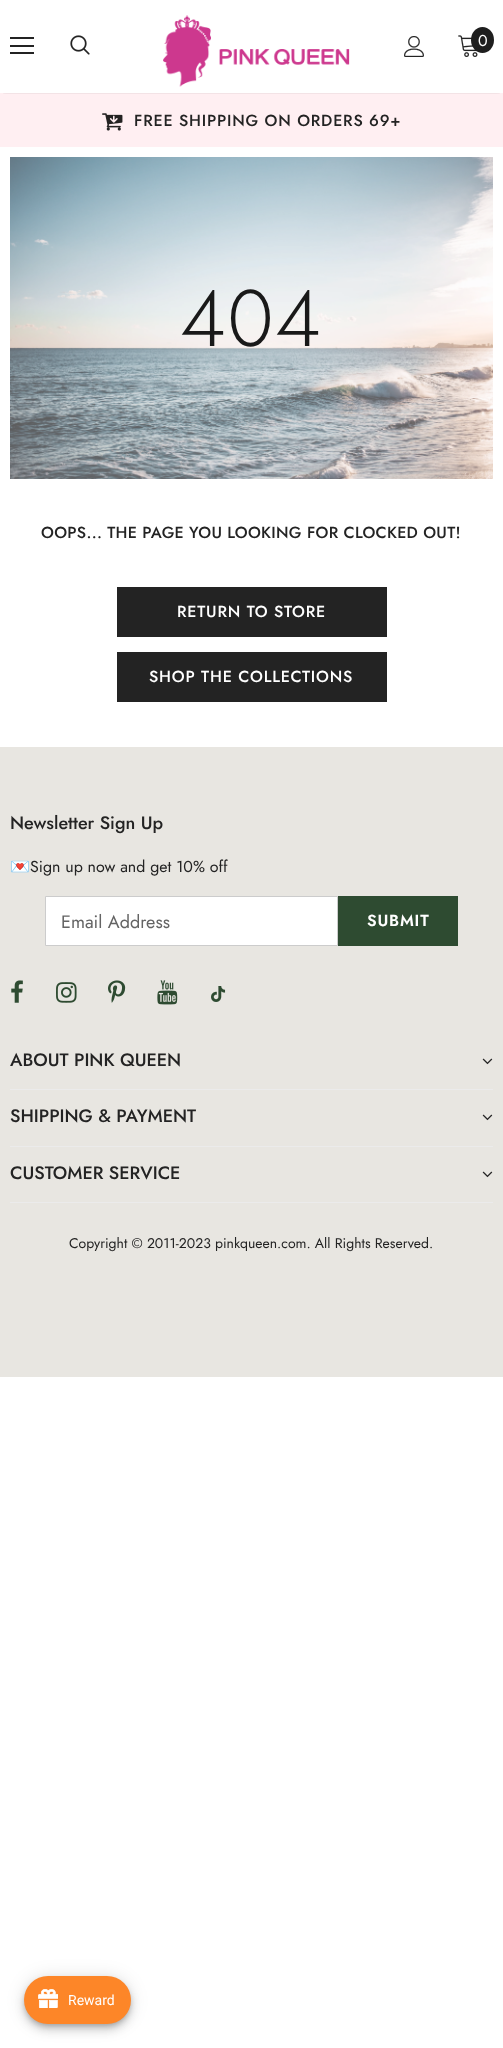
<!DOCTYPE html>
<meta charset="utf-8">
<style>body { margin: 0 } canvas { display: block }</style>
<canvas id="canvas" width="503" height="2048"></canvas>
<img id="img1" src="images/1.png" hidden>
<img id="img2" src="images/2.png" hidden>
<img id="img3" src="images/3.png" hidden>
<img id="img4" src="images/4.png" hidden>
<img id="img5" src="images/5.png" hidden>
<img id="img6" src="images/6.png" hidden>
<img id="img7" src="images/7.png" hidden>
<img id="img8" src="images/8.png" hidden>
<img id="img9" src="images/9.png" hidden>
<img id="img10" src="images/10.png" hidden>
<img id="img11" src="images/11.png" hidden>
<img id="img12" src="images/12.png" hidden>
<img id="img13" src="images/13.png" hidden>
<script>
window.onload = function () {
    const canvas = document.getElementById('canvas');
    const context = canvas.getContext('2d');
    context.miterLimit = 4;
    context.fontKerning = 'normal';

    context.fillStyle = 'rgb(255, 255, 255)';
    context.fillRect(0, 0, 503, 2048);
    context.fillStyle = 'rgb(255, 239, 242)';
    context.fillRect(0, 93, 503, 54);
    context.save();
    context.beginPath();
    context.rect(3, 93, 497, 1);
    context.clip();
    context.fillStyle = 'rgba(0, 0, 0, 0.12)';
    context.filter = 'blur(1.5px)';
    context.beginPath();
    context.rect(3, 6, 497, 87);
    context.fill();
    context.filter = 'none';
    context.restore();
    context.fillStyle = 'rgb(35, 35, 35)';
    context.fillRect(10, 37, 24, 2);
    context.fillRect(10, 45, 24, 2);
    context.fillRect(10, 52, 24, 2);
    context.drawImage(document.getElementById('img1'), 70, 35, 20, 20);
    context.drawImage(document.getElementById('img2'), 163, 15, 187, 72);
    context.drawImage(document.getElementById('img3'), 404, 36, 20, 21);
    context.drawImage(document.getElementById('img4'), 458, 35, 20, 22);
    context.fillStyle = 'rgb(30, 30, 30)';
    context.beginPath();
    context.ellipse(482.5, 40, 11.5, 13, 0, 0, 2 * Math.PI);
    context.fill();
    context.drawImage(document.getElementById('img5'), 102, 113, 21, 18);
    context.drawImage(document.getElementById('img6'), 10, 157, 483, 322);
    context.fillStyle = 'rgb(35, 35, 35)';
    context.fillRect(117, 587, 270, 50);
    context.fillRect(117, 652, 270, 50);
    context.fillStyle = 'rgb(232, 230, 225)';
    context.fillRect(0, 747, 503, 630);
    context.fillStyle = 'rgb(255, 255, 255)';
    context.beginPath();
    context.rect(45.5, 896.5, 292, 49);
    context.fill();
    context.strokeStyle = 'rgb(204, 204, 204)';
    context.stroke();
    context.fillStyle = 'rgb(46, 75, 49)';
    context.fillRect(338, 896, 120, 50);
    context.drawImage(document.getElementById('img7'), 11, 980, 12, 23);
    context.drawImage(document.getElementById('img8'), 56, 982, 21, 21);
    context.drawImage(document.getElementById('img9'), 108, 980, 18, 23);
    context.drawImage(document.getElementById('img10'), 157, 980, 21, 25);
    context.drawImage(document.getElementById('img11'), 211, 986, 15, 16);
    context.fillStyle = 'rgb(235, 235, 235)';
    context.fillRect(10, 1089, 483, 1);
    context.drawImage(document.getElementById('img12'), 482, 1058, 11, 7);
    context.fillRect(10, 1146, 483, 1);
    context.drawImage(document.getElementById('img12'), 482, 1114, 11, 7);
    context.fillRect(10, 1202, 483, 1);
    context.drawImage(document.getElementById('img12'), 482, 1171, 11, 7);
    context.fillStyle = 'rgba(0, 0, 0, 0.12)';
    context.filter = 'blur(9px)';
    context.beginPath();
    context.roundRect(24, 1977, 107, 48, 24);
    context.fill();
    context.filter = 'none';
    context.fillStyle = 'rgba(0, 0, 0, 0.14)';
    context.filter = 'blur(5px)';
    context.beginPath();
    context.roundRect(24, 1982, 107, 48, 24);
    context.fill();
    context.filter = 'none';
    context.fillStyle = 'rgba(0, 0, 0, 0.2)';
    context.filter = 'blur(2.5px)';
    context.beginPath();
    context.roundRect(25, 1980, 105, 46, 23);
    context.fill();
    context.filter = 'none';
    context.fillStyle = 'rgb(253, 134, 40)';
    context.beginPath();
    context.roundRect(24, 1976, 107, 48, 24);
    context.fill();
    context.drawImage(document.getElementById('img13'), 38, 1989, 20, 19);
    context.font = '16px Jost';
    context.fillStyle = 'rgb(255, 255, 255)';
    context.fillText('0', 478, 46);
    context.letterSpacing = '0.8px';
    context.font = '500 16px Jost';
    context.fillStyle = 'rgb(35, 35, 35)';
    context.fillText('FREE SHIPPING ON ORDERS 69+', 134, 126);
    context.letterSpacing = '1.5px';
    context.font = '300 80px Jost';
    context.fillStyle = 'rgb(25, 25, 25)';
    context.fillText('404', 180, 346);
    context.letterSpacing = '0.3px';
    context.font = '500 16px Jost';
    context.fillStyle = 'rgb(35, 35, 35)';
    context.fillText('OOPS... THE PAGE YOU LOOKING FOR CLOCKED OUT!', 41, 538);
    context.letterSpacing = '0.8px';
    context.fillStyle = 'rgb(255, 255, 255)';
    context.fillText('RETURN TO STORE', 177, 617);
    context.fillText('SHOP THE COLLECTIONS', 149, 682);
    context.letterSpacing = '0px';
    context.font = '500 18px Jost';
    context.fillStyle = 'rgb(35, 35, 35)';
    context.fillText('Newsletter Sign Up', 10, 829);
    context.font = '16px Noto Color Emoji';
    context.fillText('💌', 10, 872);
    context.font = '16px Jost';
    context.fillText('Sign up now and get 10% off', 30, 872);
    context.font = '18px Jost';
    context.fillStyle = 'rgb(100, 100, 100)';
    context.fillText('Email Address', 61, 928);
    context.letterSpacing = '0.8px';
    context.font = '600 16px Jost';
    context.fillStyle = 'rgb(255, 255, 255)';
    context.fillText('SUBMIT', 367, 926);
    context.letterSpacing = '0px';
    context.font = '500 18px Jost';
    context.fillStyle = 'rgb(35, 35, 35)';
    context.fillText('ABOUT PINK QUEEN', 10, 1066);
    context.fillText('SHIPPING & PAYMENT', 10, 1122);
    context.fillText('CUSTOMER SERVICE', 10, 1179);
    context.font = '14px Jost';
    context.fillText('Copyright © 2011-2023 pinkqueen.com. All Rights Reserved.', 69, 1248);
    context.font = '14px Roboto';
    context.fillStyle = 'rgb(255, 255, 255)';
    context.fillText('Reward', 68, 2005);
};
</script>
